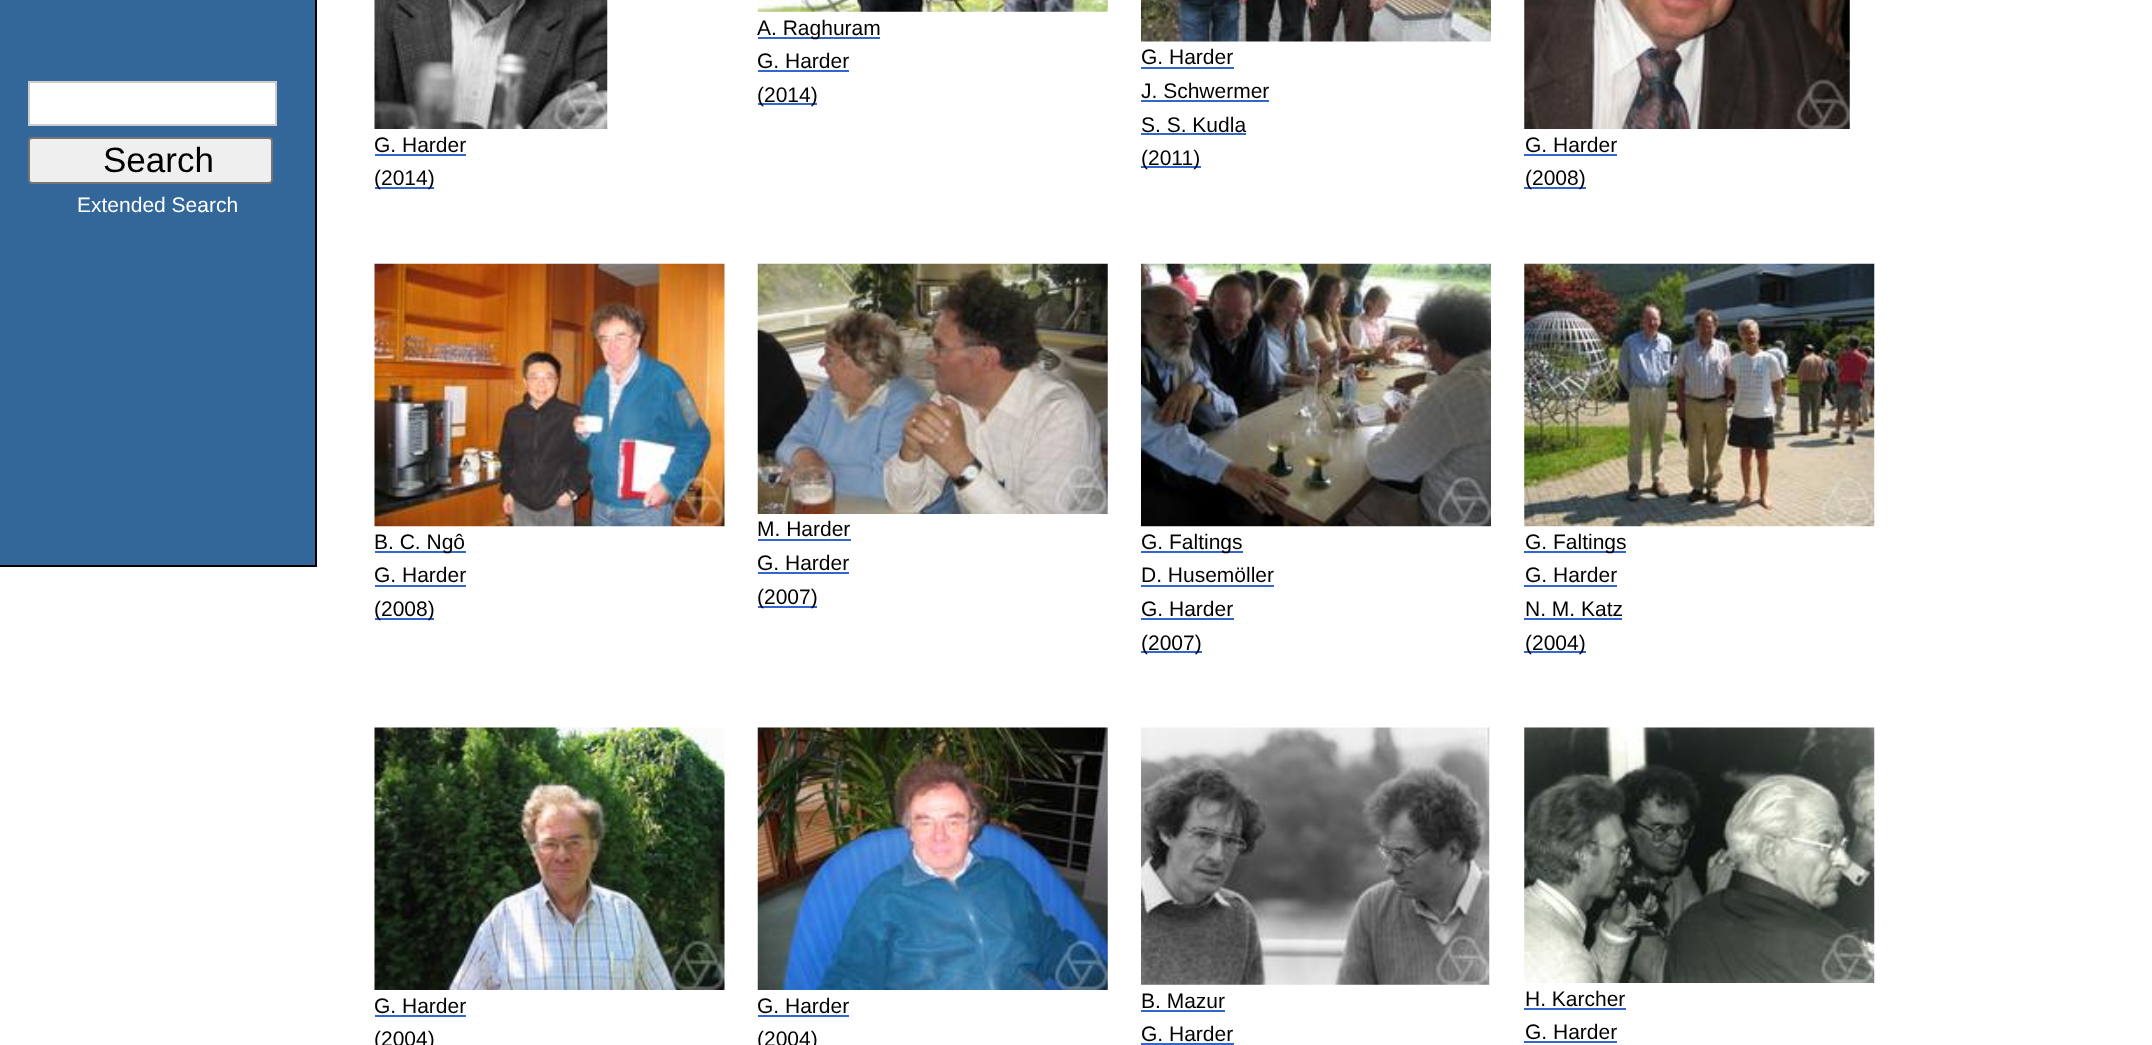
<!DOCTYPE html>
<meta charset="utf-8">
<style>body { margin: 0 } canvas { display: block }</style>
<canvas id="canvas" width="2152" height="1045"></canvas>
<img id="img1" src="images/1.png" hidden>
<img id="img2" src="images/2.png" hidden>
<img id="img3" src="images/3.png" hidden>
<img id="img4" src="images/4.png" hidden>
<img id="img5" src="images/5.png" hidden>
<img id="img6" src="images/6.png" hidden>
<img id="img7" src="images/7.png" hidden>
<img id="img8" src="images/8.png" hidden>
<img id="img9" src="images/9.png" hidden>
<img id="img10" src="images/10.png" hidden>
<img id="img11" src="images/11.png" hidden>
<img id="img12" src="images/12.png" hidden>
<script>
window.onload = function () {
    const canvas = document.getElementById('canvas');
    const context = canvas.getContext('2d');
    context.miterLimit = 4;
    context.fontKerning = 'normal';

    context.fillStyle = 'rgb(255, 255, 255)';
    context.fillRect(0, 0, 2152, 1045);
    context.fillStyle = 'rgb(51, 102, 153)';
    context.fillRect(0, 0, 315, 565);
    context.fillStyle = 'rgb(0, 0, 0)';
    context.fillRect(315, 0, 2, 567);
    context.fillRect(0, 565, 317, 2);
    context.fillStyle = 'rgb(255, 255, 255)';
    context.beginPath();
    context.rect(29, 82, 247, 43);
    context.fill();
    context.strokeStyle = 'rgb(204, 204, 204)';
    context.lineWidth = 2;
    context.stroke();
    context.fillStyle = 'rgb(239, 239, 239)';
    context.beginPath();
    context.roundRect(29, 138, 243, 45, 3);
    context.fill();
    context.strokeStyle = 'rgb(118, 118, 118)';
    context.stroke();
    context.drawImage(document.getElementById('img1'), 374, 0, 234, 129);
    context.fillStyle = 'rgb(51, 102, 204)';
    context.fillRect(375, 154, 91, 2);
    context.fillRect(375, 187, 59, 2);
    context.drawImage(document.getElementById('img2'), 757, 0, 351, 12);
    context.fillRect(758, 37, 122, 2);
    context.fillRect(758, 70, 91, 2);
    context.fillRect(758, 103, 59, 2);
    context.drawImage(document.getElementById('img3'), 1141, 0, 350, 42);
    context.fillRect(1141, 67, 93, 2);
    context.fillRect(1141, 100, 128, 2);
    context.fillRect(1141, 133, 105, 2);
    context.fillRect(1141, 166, 60, 2);
    context.drawImage(document.getElementById('img4'), 1524, 0, 326, 129);
    context.fillRect(1524, 154, 93, 2);
    context.fillRect(1524, 187, 62, 2);
    context.drawImage(document.getElementById('img5'), 374, 263, 351, 264);
    context.fillRect(375, 551, 91, 2);
    context.fillRect(375, 585, 91, 2);
    context.fillRect(375, 618, 59, 2);
    context.drawImage(document.getElementById('img6'), 757, 263, 351, 251);
    context.fillRect(758, 539, 93, 2);
    context.fillRect(758, 572, 91, 2);
    context.fillRect(758, 606, 59, 2);
    context.drawImage(document.getElementById('img7'), 1141, 263, 350, 264);
    context.fillRect(1141, 551, 102, 2);
    context.fillRect(1141, 585, 133, 2);
    context.fillRect(1141, 618, 93, 2);
    context.fillRect(1141, 651, 61, 2);
    context.drawImage(document.getElementById('img8'), 1524, 263, 351, 264);
    context.fillRect(1524, 551, 102, 2);
    context.fillRect(1524, 585, 93, 2);
    context.fillRect(1524, 618, 98, 2);
    context.fillRect(1524, 651, 62, 2);
    context.drawImage(document.getElementById('img9'), 374, 727, 351, 263);
    context.fillRect(375, 1015, 91, 2);
    context.drawImage(document.getElementById('img10'), 757, 727, 351, 263);
    context.fillRect(758, 1015, 91, 2);
    context.drawImage(document.getElementById('img11'), 1141, 727, 349, 258);
    context.fillRect(1141, 1010, 84, 2);
    context.fillRect(1141, 1043, 93, 2);
    context.drawImage(document.getElementById('img12'), 1524, 727, 351, 256);
    context.fillRect(1524, 1008, 102, 2);
    context.fillRect(1524, 1041, 93, 2);
    context.font = '35px Liberation Sans';
    context.fillStyle = 'rgb(0, 0, 0)';
    context.fillText('Search', 103, 172);
    context.font = '21px Liberation Sans';
    context.fillStyle = 'rgb(255, 255, 255)';
    context.fillText('Extended Search', 77, 212);
    context.fillStyle = 'rgb(0, 0, 0)';
    context.fillText('G. Harder', 374, 152);
    context.fillText('(2014)', 374, 185);
    context.fillText('A. Raghuram', 757, 35);
    context.fillText('G. Harder', 757, 68);
    context.fillText('(2014)', 757, 102);
    context.fillText('G. Harder', 1141, 64);
    context.fillText('J. Schwermer', 1141, 98);
    context.fillText('S. S. Kudla', 1141, 132);
    context.fillText('(2011)', 1141, 165);
    context.fillText('G. Harder', 1525, 152);
    context.fillText('(2008)', 1525, 185);
    context.fillText('B. C. Ngô', 374, 549);
    context.fillText('G. Harder', 374, 582);
    context.fillText('(2008)', 374, 616);
    context.fillText('M. Harder', 757, 536);
    context.fillText('G. Harder', 757, 570);
    context.fillText('(2007)', 757, 604);
    context.fillText('G. Faltings', 1141, 549);
    context.fillText('D. Husemöller', 1141, 582);
    context.fillText('G. Harder', 1141, 616);
    context.fillText('(2007)', 1141, 650);
    context.fillText('G. Faltings', 1525, 549);
    context.fillText('G. Harder', 1525, 582);
    context.fillText('N. M. Katz', 1525, 616);
    context.fillText('(2004)', 1525, 650);
    context.fillText('G. Harder', 374, 1013);
    context.fillText('(2004)', 374, 1046);
    context.fillText('G. Harder', 757, 1013);
    context.fillText('(2004)', 757, 1046);
    context.fillText('B. Mazur', 1141, 1008);
    context.fillText('G. Harder', 1141, 1041);
    context.fillText('H. Karcher', 1525, 1006);
    context.fillText('G. Harder', 1525, 1039);
};
</script>
